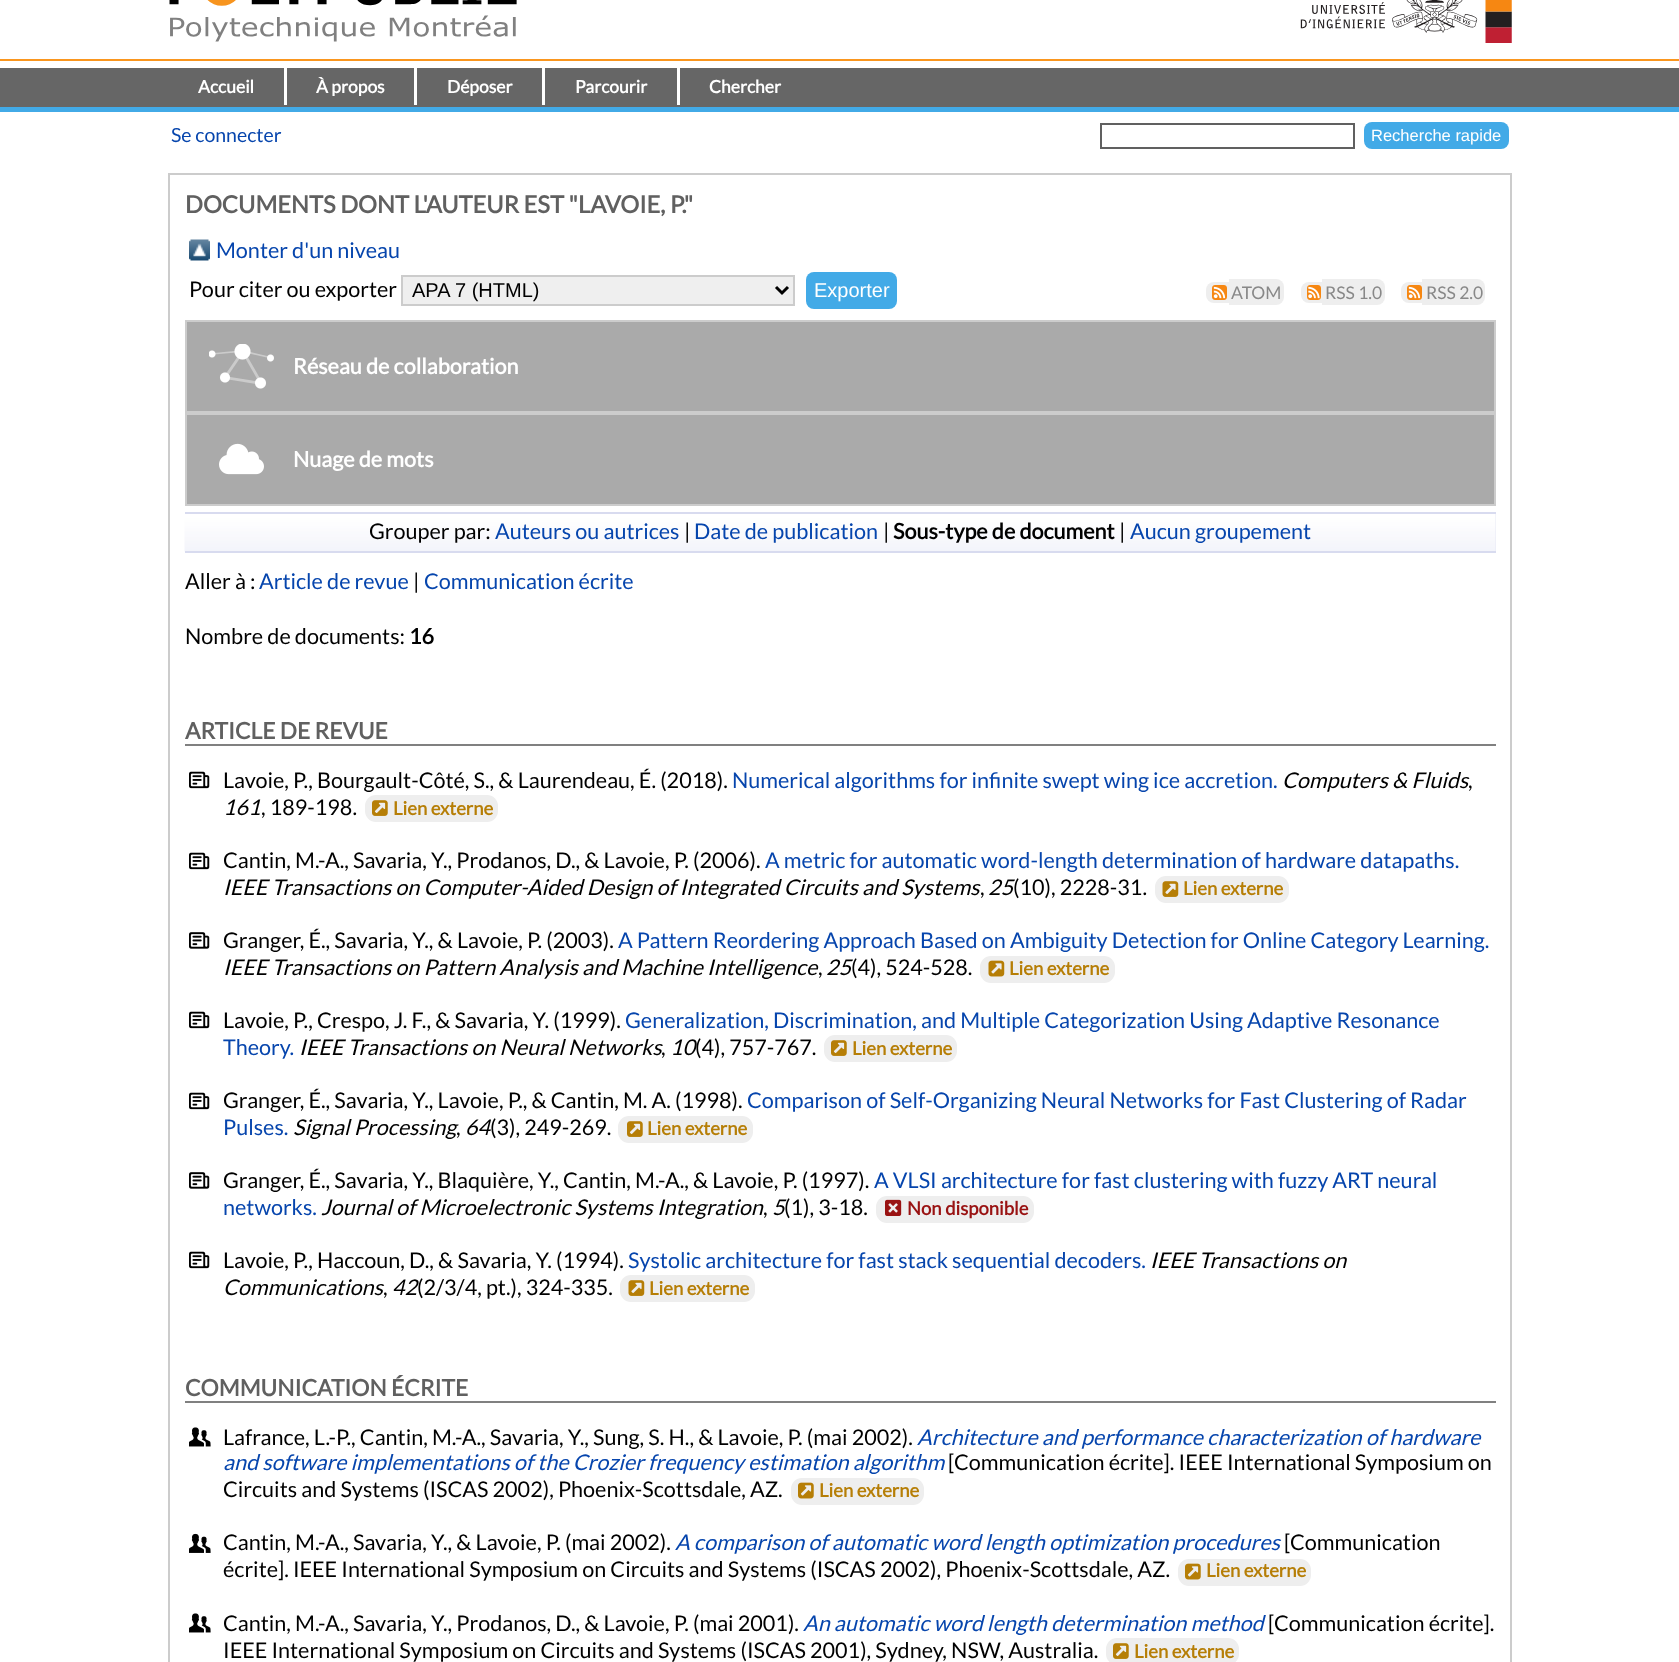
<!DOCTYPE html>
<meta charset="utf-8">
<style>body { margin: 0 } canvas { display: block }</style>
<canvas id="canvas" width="1679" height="1662"></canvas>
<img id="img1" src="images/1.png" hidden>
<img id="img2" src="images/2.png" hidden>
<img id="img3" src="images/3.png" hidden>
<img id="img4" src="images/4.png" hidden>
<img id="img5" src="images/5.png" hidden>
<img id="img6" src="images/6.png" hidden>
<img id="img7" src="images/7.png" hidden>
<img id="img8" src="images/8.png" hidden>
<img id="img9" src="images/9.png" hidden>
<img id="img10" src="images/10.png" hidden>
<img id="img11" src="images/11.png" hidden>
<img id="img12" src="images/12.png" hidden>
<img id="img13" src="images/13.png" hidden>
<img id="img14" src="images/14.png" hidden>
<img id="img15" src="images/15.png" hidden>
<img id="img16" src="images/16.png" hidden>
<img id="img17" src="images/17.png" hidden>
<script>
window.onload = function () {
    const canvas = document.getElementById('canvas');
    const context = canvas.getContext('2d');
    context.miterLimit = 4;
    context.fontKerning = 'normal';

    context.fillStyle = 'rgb(255, 255, 255)';
    context.fillRect(0, 0, 1679, 1662);
    context.fillStyle = 'rgb(250, 150, 30)';
    context.fillRect(0, 59, 1679, 2);
    context.drawImage(document.getElementById('img1'), 169, 0, 348, 42);
    context.drawImage(document.getElementById('img2'), 1300, 0, 212, 43);
    context.fillStyle = 'rgb(102, 102, 102)';
    context.fillRect(0, 68, 1679, 39);
    context.fillStyle = 'rgb(66, 170, 231)';
    context.fillRect(0, 107, 1679, 5);
    context.fillStyle = 'rgb(255, 255, 255)';
    context.fillRect(284, 68, 3, 37);
    context.fillRect(414, 68, 3, 37);
    context.fillRect(542, 68, 3, 37);
    context.fillRect(677, 68, 3, 37);
    context.strokeStyle = 'rgb(96, 96, 96)';
    context.lineWidth = 2;
    context.strokeRect(1101, 124, 253, 24);
    context.fillStyle = 'rgb(66, 170, 231)';
    context.beginPath();
    context.roundRect(1364, 122, 145, 27, 8);
    context.fill();
    context.strokeStyle = 'rgb(204, 204, 204)';
    context.strokeRect(169, 174, 1342, 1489);
    context.drawImage(document.getElementById('img3'), 189, 239, 21, 22);
    context.fillStyle = 'rgb(239, 239, 239)';
    context.beginPath();
    context.rect(402, 276, 392, 29);
    context.fill();
    context.stroke();
    context.beginPath();
    context.moveTo(776, 287);
    context.lineTo(782, 293);
    context.lineTo(788, 287);
    context.strokeStyle = 'rgb(0, 0, 0)';
    context.lineWidth = 3;
    context.stroke();
    context.fillStyle = 'rgb(66, 170, 231)';
    context.beginPath();
    context.roundRect(806, 272, 91, 37, 8);
    context.fill();
    context.fillStyle = 'rgb(238, 238, 238)';
    context.beginPath();
    context.roundRect(1206, 282, 23, 21, [8, 0, 0, 8]);
    context.fill();
    context.drawImage(document.getElementById('img4'), 1212, 285, 15, 15);
    context.fillRect(1229, 279, 3, 26);
    context.beginPath();
    context.roundRect(1232, 279, 52, 26, [0, 8, 8, 0]);
    context.fill();
    context.beginPath();
    context.roundRect(1301, 282, 21, 21, [8, 0, 0, 8]);
    context.fill();
    context.drawImage(document.getElementById('img5'), 1307, 285, 14, 15);
    context.fillRect(1322, 279, 3, 26);
    context.beginPath();
    context.roundRect(1325, 279, 60, 26, [0, 8, 8, 0]);
    context.fill();
    context.beginPath();
    context.roundRect(1401, 282, 21, 21, [8, 0, 0, 8]);
    context.fill();
    context.drawImage(document.getElementById('img4'), 1407, 285, 15, 15);
    context.fillRect(1422, 279, 3, 26);
    context.beginPath();
    context.roundRect(1425, 279, 60, 26, [0, 8, 8, 0]);
    context.fill();
    context.fillStyle = 'rgb(170, 170, 170)';
    context.beginPath();
    context.rect(186, 321, 1309, 91);
    context.fill();
    context.strokeStyle = 'rgb(204, 204, 204)';
    context.lineWidth = 2;
    context.stroke();
    context.drawImage(document.getElementById('img6'), 209, 344, 65, 45);
    context.beginPath();
    context.rect(186, 414, 1309, 91);
    context.fill();
    context.stroke();
    context.drawImage(document.getElementById('img7'), 219, 443, 45, 32);
    context.fillStyle = 'rgb(231, 233, 245)';
    context.fillRect(1495, 514, 1, 37);
    context.drawImage(document.getElementById('img8'), 184, 512, 1312, 40);
    context.fillStyle = 'rgb(216, 219, 239)';
    context.fillRect(185, 512, 1311, 2);
    context.fillRect(185, 551, 1311, 2);
    context.fillStyle = 'rgb(128, 128, 128)';
    context.fillRect(185, 744, 1311, 2);
    context.drawImage(document.getElementById('img9'), 189, 771, 21, 18);
    context.fillStyle = 'rgb(238, 238, 238)';
    context.beginPath();
    context.roundRect(365, 795, 133, 27, 11);
    context.fill();
    context.drawImage(document.getElementById('img10'), 372, 800, 16, 16);
    context.drawImage(document.getElementById('img9'), 189, 852, 21, 18);
    context.beginPath();
    context.roundRect(1155, 876, 134, 27, 11);
    context.fill();
    context.drawImage(document.getElementById('img11'), 1162, 881, 17, 16);
    context.drawImage(document.getElementById('img12'), 189, 932, 21, 17);
    context.beginPath();
    context.roundRect(980, 956, 135, 27, 11);
    context.fill();
    context.drawImage(document.getElementById('img13'), 988, 960, 17, 17);
    context.drawImage(document.getElementById('img9'), 189, 1011, 21, 18);
    context.beginPath();
    context.roundRect(824, 1035, 133, 27, 11);
    context.fill();
    context.drawImage(document.getElementById('img10'), 831, 1040, 16, 16);
    context.drawImage(document.getElementById('img9'), 189, 1092, 21, 18);
    context.beginPath();
    context.roundRect(618, 1116, 135, 27, 11);
    context.fill();
    context.drawImage(document.getElementById('img10'), 627, 1121, 16, 16);
    context.drawImage(document.getElementById('img12'), 189, 1172, 21, 17);
    context.beginPath();
    context.roundRect(876, 1196, 158, 27, 11);
    context.fill();
    context.drawImage(document.getElementById('img14'), 885, 1199, 17, 17);
    context.drawImage(document.getElementById('img9'), 189, 1251, 21, 18);
    context.beginPath();
    context.roundRect(620, 1275, 135, 27, 11);
    context.fill();
    context.drawImage(document.getElementById('img11'), 628, 1280, 17, 16);
    context.fillStyle = 'rgb(128, 128, 128)';
    context.fillRect(185, 1401, 1311, 2);
    context.drawImage(document.getElementById('img15'), 189, 1427, 22, 20);
    context.fillStyle = 'rgb(238, 238, 238)';
    context.beginPath();
    context.roundRect(791, 1478, 133, 27, 11);
    context.fill();
    context.drawImage(document.getElementById('img16'), 798, 1482, 16, 17);
    context.drawImage(document.getElementById('img17'), 189, 1533, 22, 20);
    context.beginPath();
    context.roundRect(1178, 1559, 133, 27, 11);
    context.fill();
    context.drawImage(document.getElementById('img16'), 1185, 1563, 16, 17);
    context.drawImage(document.getElementById('img15'), 189, 1613, 22, 20);
    context.beginPath();
    context.roundRect(1106, 1638, 133, 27, 11);
    context.fill();
    context.drawImage(document.getElementById('img10'), 1113, 1643, 16, 16);
    context.font = 'bold 17.5px Lato';
    context.fillStyle = 'rgb(255, 255, 255)';
    context.fillText('Accueil', 198, 93);
    context.fillText('À propos', 316, 93);
    context.fillText('Déposer', 447, 93);
    context.fillText('Parcourir', 575, 93);
    context.fillText('Chercher', 709, 93);
    context.font = '19.5px Lato';
    context.fillStyle = 'rgb(6, 69, 173)';
    context.fillText('Se connecter', 171, 142);
    context.font = '16.5px Liberation Sans';
    context.fillStyle = 'rgb(255, 255, 255)';
    context.fillText('Recherche rapide', 1371, 141);
    context.font = 'bold 23.75px Lato';
    context.fillStyle = 'rgb(96, 96, 96)';
    context.fillText('DOCUMENTS DONT L\'AUTEUR EST "LAVOIE, P."', 185, 213);
    context.font = '21.6px Lato';
    context.fillStyle = 'rgb(6, 69, 173)';
    context.fillText('Monter d\'un niveau', 216, 258);
    context.fillStyle = 'rgb(0, 0, 0)';
    context.fillText('Pour citer ou exporter', 189, 297);
    context.font = '20px Liberation Sans';
    context.fillText('APA 7 (HTML)', 412, 297);
    context.fillStyle = 'rgb(255, 255, 255)';
    context.fillText('Exporter', 814, 297);
    context.font = '17.5px Lato';
    context.fillStyle = 'rgb(136, 136, 136)';
    context.fillText('ATOM', 1231, 299);
    context.fillText('RSS 1.0', 1325, 299);
    context.fillText('RSS 2.0', 1426, 299);
    context.font = 'bold 21.6px Lato';
    context.fillStyle = 'rgb(255, 255, 255)';
    context.fillText('Réseau de collaboration', 293, 374);
    context.fillText('Nuage de mots', 293, 467);
    context.font = '21.6px Lato';
    context.fillStyle = 'rgb(0, 0, 0)';
    context.fillText('Grouper par:', 369, 539);
    context.fillStyle = 'rgb(6, 69, 173)';
    context.fillText('Auteurs ou autrices', 495, 539);
    context.fillStyle = 'rgb(0, 0, 0)';
    context.fillText('|', 684, 539);
    context.fillStyle = 'rgb(6, 69, 173)';
    context.fillText('Date de publication', 694, 539);
    context.fillStyle = 'rgb(0, 0, 0)';
    context.fillText('|', 883, 539);
    context.font = 'bold 21.6px Lato';
    context.fillText('Sous-type de document', 893, 539);
    context.font = '21.6px Lato';
    context.fillText('|', 1119, 539);
    context.fillStyle = 'rgb(6, 69, 173)';
    context.fillText('Aucun groupement', 1130, 539);
    context.fillStyle = 'rgb(0, 0, 0)';
    context.fillText('Aller à :', 185, 589);
    context.fillStyle = 'rgb(6, 69, 173)';
    context.fillText('Article de revue', 259, 589);
    context.fillStyle = 'rgb(0, 0, 0)';
    context.fillText('|', 413, 589);
    context.fillStyle = 'rgb(6, 69, 173)';
    context.fillText('Communication écrite', 424, 589);
    context.fillStyle = 'rgb(0, 0, 0)';
    context.fillText('Nombre de documents:', 185, 644);
    context.font = 'bold 21.6px Lato';
    context.fillText('16', 409, 644);
    context.font = 'bold 22.75px Lato';
    context.fillStyle = 'rgb(96, 96, 96)';
    context.fillText('ARTICLE DE REVUE', 185, 739);
    context.font = '21.6px Lato';
    context.fillStyle = 'rgb(0, 0, 0)';
    context.fillText('Lavoie, P., Bourgault-Côté, S., & Laurendeau, É. (2018).', 223, 788);
    context.fillStyle = 'rgb(6, 69, 173)';
    context.fillText('Numerical algorithms for infinite swept wing ice accretion.', 732, 788);
    context.font = 'italic 21.6px Lato';
    context.fillStyle = 'rgb(0, 0, 0)';
    context.fillText('Computers & Fluids', 1282, 788);
    context.font = '21.6px Lato';
    context.fillText(',', 1468, 788);
    context.font = 'italic 21.6px Lato';
    context.fillText('161', 223, 815);
    context.font = '21.6px Lato';
    context.fillText(', 189-198.', 261, 815);
    context.font = 'bold 18.5px Lato';
    context.fillStyle = 'rgb(182, 126, 6)';
    context.fillText('Lien externe', 393, 815);
    context.font = '21.6px Lato';
    context.fillStyle = 'rgb(0, 0, 0)';
    context.fillText('Cantin, M.-A., Savaria, Y., Prodanos, D., & Lavoie, P. (2006).', 223, 868);
    context.fillStyle = 'rgb(6, 69, 173)';
    context.fillText('A metric for automatic word-length determination of hardware datapaths.', 765, 868);
    context.font = 'italic 21.6px Lato';
    context.fillStyle = 'rgb(0, 0, 0)';
    context.fillText('IEEE Transactions on Computer-Aided Design of Integrated Circuits and Systems', 223, 895);
    context.font = '21.6px Lato';
    context.fillText(',', 980, 895);
    context.font = 'italic 21.6px Lato';
    context.fillText('25', 988, 895);
    context.font = '21.6px Lato';
    context.fillText('(10), 2228-31.', 1013, 895);
    context.font = 'bold 18.5px Lato';
    context.fillStyle = 'rgb(182, 126, 6)';
    context.fillText('Lien externe', 1183, 895);
    context.font = '21.6px Lato';
    context.fillStyle = 'rgb(0, 0, 0)';
    context.fillText('Granger, É., Savaria, Y., & Lavoie, P. (2003).', 223, 948);
    context.fillStyle = 'rgb(6, 69, 173)';
    context.fillText('A Pattern Reordering Approach Based on Ambiguity Detection for Online Category Learning.', 618, 948);
    context.font = 'italic 21.6px Lato';
    context.fillStyle = 'rgb(0, 0, 0)';
    context.fillText('IEEE Transactions on Pattern Analysis and Machine Intelligence', 223, 975);
    context.font = '21.6px Lato';
    context.fillText(',', 818, 975);
    context.font = 'italic 21.6px Lato';
    context.fillText('25', 826, 975);
    context.font = '21.6px Lato';
    context.fillText('(4), 524-528.', 851, 975);
    context.font = 'bold 18.5px Lato';
    context.fillStyle = 'rgb(182, 126, 6)';
    context.fillText('Lien externe', 1009, 975);
    context.font = '21.6px Lato';
    context.fillStyle = 'rgb(0, 0, 0)';
    context.fillText('Lavoie, P., Crespo, J. F., & Savaria, Y. (1999).', 223, 1028);
    context.fillStyle = 'rgb(6, 69, 173)';
    context.fillText('Generalization, Discrimination, and Multiple Categorization Using Adaptive Resonance', 625, 1028);
    context.fillText('Theory.', 223, 1055);
    context.font = 'italic 21.6px Lato';
    context.fillStyle = 'rgb(0, 0, 0)';
    context.fillText('IEEE Transactions on Neural Networks', 299, 1055);
    context.font = '21.6px Lato';
    context.fillText(',', 661, 1055);
    context.font = 'italic 21.6px Lato';
    context.fillText('10', 670, 1055);
    context.font = '21.6px Lato';
    context.fillText('(4), 757-767.', 695, 1055);
    context.font = 'bold 18.5px Lato';
    context.fillStyle = 'rgb(182, 126, 6)';
    context.fillText('Lien externe', 852, 1055);
    context.font = '21.6px Lato';
    context.fillStyle = 'rgb(0, 0, 0)';
    context.fillText('Granger, É., Savaria, Y., Lavoie, P., & Cantin, M. A. (1998).', 223, 1108);
    context.fillStyle = 'rgb(6, 69, 173)';
    context.fillText('Comparison of Self-Organizing Neural Networks for Fast Clustering of Radar', 747, 1108);
    context.fillText('Pulses.', 223, 1135);
    context.font = 'italic 21.6px Lato';
    context.fillStyle = 'rgb(0, 0, 0)';
    context.fillText('Signal Processing', 293, 1135);
    context.fillText('64', 465, 1135);
    context.font = '21.6px Lato';
    context.fillText('(3), 249-269.', 490, 1135);
    context.font = 'bold 18.5px Lato';
    context.fillStyle = 'rgb(182, 126, 6)';
    context.fillText('Lien externe', 647, 1135);
    context.font = '21.6px Lato';
    context.fillStyle = 'rgb(0, 0, 0)';
    context.fillText(',', 456, 1135);
    context.fillText('Granger, É., Savaria, Y., Blaquière, Y., Cantin, M.-A., & Lavoie, P. (1997).', 223, 1188);
    context.fillStyle = 'rgb(6, 69, 173)';
    context.fillText('A VLSI architecture for fast clustering with fuzzy ART neural', 874, 1188);
    context.fillText('networks.', 223, 1215);
    context.font = 'italic 21.6px Lato';
    context.fillStyle = 'rgb(0, 0, 0)';
    context.fillText('Journal of Microelectronic Systems Integration', 321, 1215);
    context.font = '21.6px Lato';
    context.fillText(',', 763, 1215);
    context.font = 'italic 21.6px Lato';
    context.fillText('5', 772, 1215);
    context.font = '21.6px Lato';
    context.fillText('(1), 3-18.', 784, 1215);
    context.font = 'bold 18.5px Lato';
    context.fillStyle = 'rgb(153, 18, 18)';
    context.fillText('Non disponible', 907, 1215);
    context.font = '21.6px Lato';
    context.fillStyle = 'rgb(0, 0, 0)';
    context.fillText('Lavoie, P., Haccoun, D., & Savaria, Y. (1994).', 223, 1268);
    context.fillStyle = 'rgb(6, 69, 173)';
    context.fillText('Systolic architecture for fast stack sequential decoders.', 628, 1268);
    context.font = 'italic 21.6px Lato';
    context.fillStyle = 'rgb(0, 0, 0)';
    context.fillText('IEEE Transactions on', 1150, 1268);
    context.fillText('Communications', 223, 1295);
    context.font = '21.6px Lato';
    context.fillText(',', 383, 1295);
    context.font = 'italic 21.6px Lato';
    context.fillText('42', 392, 1295);
    context.font = '21.6px Lato';
    context.fillText('(2/3/4, pt.), 324-335.', 417, 1295);
    context.font = 'bold 18.5px Lato';
    context.fillStyle = 'rgb(182, 126, 6)';
    context.fillText('Lien externe', 649, 1295);
    context.font = 'bold 22.75px Lato';
    context.fillStyle = 'rgb(96, 96, 96)';
    context.fillText('COMMUNICATION ÉCRITE', 185, 1396);
    context.font = '21.6px Lato';
    context.fillStyle = 'rgb(0, 0, 0)';
    context.fillText('Lafrance, L.-P., Cantin, M.-A., Savaria, Y., Sung, S. H., & Lavoie, P. (mai 2002).', 223, 1445);
    context.font = 'italic 21.6px Lato';
    context.fillStyle = 'rgb(6, 69, 173)';
    context.fillText('Architecture and performance characterization of hardware', 917, 1445);
    context.fillText('and software implementations of the Crozier frequency estimation algorithm', 223, 1470);
    context.font = '21.6px Lato';
    context.fillStyle = 'rgb(0, 0, 0)';
    context.fillText('[Communication écrite]. IEEE International Symposium on', 948, 1470);
    context.fillText('Circuits and Systems (ISCAS 2002), Phoenix-Scottsdale, AZ.', 223, 1497);
    context.font = 'bold 18.5px Lato';
    context.fillStyle = 'rgb(182, 126, 6)';
    context.fillText('Lien externe', 819, 1497);
    context.font = '21.6px Lato';
    context.fillStyle = 'rgb(0, 0, 0)';
    context.fillText('Cantin, M.-A., Savaria, Y., & Lavoie, P. (mai 2002).', 223, 1550);
    context.font = 'italic 21.6px Lato';
    context.fillStyle = 'rgb(6, 69, 173)';
    context.fillText('A comparison of automatic word length optimization procedures', 675, 1550);
    context.font = '21.6px Lato';
    context.fillStyle = 'rgb(0, 0, 0)';
    context.fillText('[Communication', 1284, 1550);
    context.fillText('écrite]. IEEE International Symposium on Circuits and Systems (ISCAS 2002), Phoenix-Scottsdale, AZ.', 223, 1577);
    context.font = 'bold 18.5px Lato';
    context.fillStyle = 'rgb(182, 126, 6)';
    context.fillText('Lien externe', 1206, 1577);
    context.font = '21.6px Lato';
    context.fillStyle = 'rgb(0, 0, 0)';
    context.fillText('Cantin, M.-A., Savaria, Y., Prodanos, D., & Lavoie, P. (mai 2001).', 223, 1631);
    context.font = 'italic 21.6px Lato';
    context.fillStyle = 'rgb(6, 69, 173)';
    context.fillText('An automatic word length determination method', 803, 1631);
    context.font = '21.6px Lato';
    context.fillStyle = 'rgb(0, 0, 0)';
    context.fillText('[Communication écrite].', 1268, 1631);
    context.fillText('IEEE International Symposium on Circuits and Systems (ISCAS 2001), Sydney, NSW, Australia.', 223, 1658);
    context.font = 'bold 18.5px Lato';
    context.fillStyle = 'rgb(182, 126, 6)';
    context.fillText('Lien externe', 1134, 1658);
};
</script>
